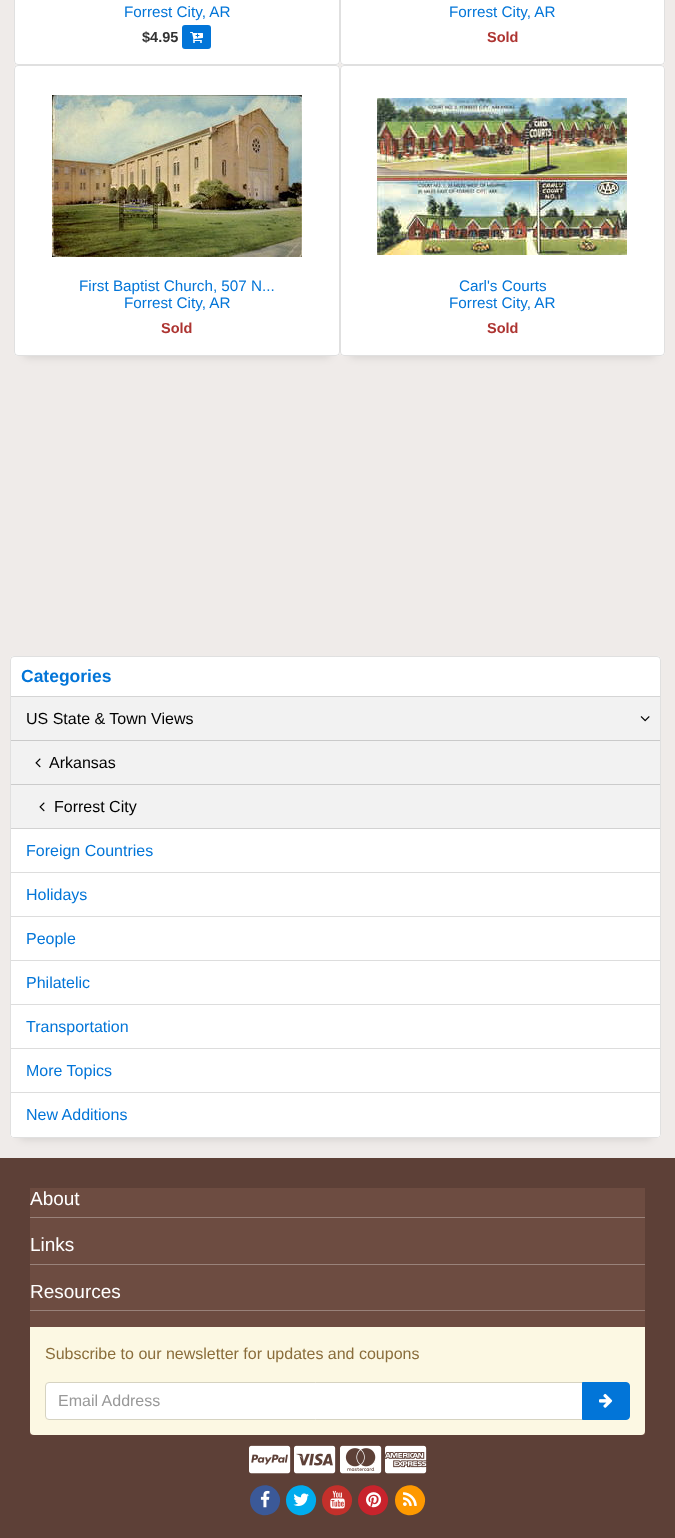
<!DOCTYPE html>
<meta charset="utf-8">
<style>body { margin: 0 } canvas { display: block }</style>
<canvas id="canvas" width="675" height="1538"></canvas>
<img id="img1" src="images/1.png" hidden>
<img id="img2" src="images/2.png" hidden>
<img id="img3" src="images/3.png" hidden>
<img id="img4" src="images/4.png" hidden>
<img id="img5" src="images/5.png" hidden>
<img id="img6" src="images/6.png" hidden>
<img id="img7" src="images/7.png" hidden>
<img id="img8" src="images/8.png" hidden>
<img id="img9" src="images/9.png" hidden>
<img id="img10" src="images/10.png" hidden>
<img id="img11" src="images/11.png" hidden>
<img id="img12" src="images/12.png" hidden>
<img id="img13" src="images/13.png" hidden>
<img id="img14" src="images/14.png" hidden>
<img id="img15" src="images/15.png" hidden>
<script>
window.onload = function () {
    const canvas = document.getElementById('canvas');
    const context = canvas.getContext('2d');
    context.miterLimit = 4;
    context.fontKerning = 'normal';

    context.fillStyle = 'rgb(239, 235, 233)';
    context.fillRect(0, 0, 675, 1538);
    context.fillStyle = 'rgb(255, 255, 255)';
    context.beginPath();
    context.roundRect(14, -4, 326, 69, 4);
    context.fill();
    context.beginPath();
    context.roundRect(14.5, -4.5, 325, 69, 3.5);
    context.strokeStyle = 'rgba(0, 0, 0, 0.12)';
    context.stroke();
    context.fillStyle = 'rgb(2, 117, 216)';
    context.beginPath();
    context.roundRect(182, 25, 29, 24, 3);
    context.fill();
    context.drawImage(document.getElementById('img1'), 190, 32, 13, 11);
    context.fillStyle = 'rgb(255, 255, 255)';
    context.beginPath();
    context.roundRect(340, -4, 325, 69, 4);
    context.fill();
    context.beginPath();
    context.roundRect(340.5, -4.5, 324, 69, 3.5);
    context.stroke();
    context.fillStyle = 'rgba(0, 0, 0, 0.15)';
    context.filter = 'blur(5px)';
    context.beginPath();
    context.rect(24, 85, 306, 271);
    context.fill();
    context.filter = 'none';
    context.fillStyle = 'rgb(255, 255, 255)';
    context.beginPath();
    context.roundRect(14, 65, 326, 291, 4);
    context.fill();
    context.beginPath();
    context.roundRect(14.5, 65.5, 325, 290, 3.5);
    context.stroke();
    context.drawImage(document.getElementById('img2'), 52, 95, 250, 162);
    context.fillStyle = 'rgba(0, 0, 0, 0.15)';
    context.filter = 'blur(5px)';
    context.beginPath();
    context.rect(350, 85, 305, 271);
    context.fill();
    context.filter = 'none';
    context.fillStyle = 'rgb(255, 255, 255)';
    context.beginPath();
    context.roundRect(340, 65, 325, 291, 4);
    context.fill();
    context.beginPath();
    context.roundRect(340.5, 65.5, 324, 290, 3.5);
    context.stroke();
    context.drawImage(document.getElementById('img3'), 377, 98, 250, 157);
    context.fillStyle = 'rgba(0, 0, 0, 0.15)';
    context.filter = 'blur(5px)';
    context.beginPath();
    context.rect(20, 676, 631, 462);
    context.fill();
    context.filter = 'none';
    context.fillStyle = 'rgb(255, 255, 255)';
    context.beginPath();
    context.roundRect(10, 656, 651, 482, 4);
    context.fill();
    context.fillStyle = 'rgb(242, 242, 242)';
    context.fillRect(11, 785, 649, 43);
    context.fillRect(11, 741, 649, 43);
    context.beginPath();
    context.roundRect(10.5, 656.5, 650, 481, 3.5);
    context.stroke();
    context.fillRect(11, 697, 649, 43);
    context.fillStyle = 'rgb(213, 213, 213)';
    context.fillRect(11, 696, 649, 1);
    context.drawImage(document.getElementById('img4'), 640, 716, 10, 6);
    context.fillStyle = 'rgb(202, 202, 202)';
    context.fillRect(11, 740, 649, 1);
    context.drawImage(document.getElementById('img5'), 35, 758, 6, 10);
    context.fillStyle = 'rgb(203, 203, 203)';
    context.fillRect(11, 784, 649, 1);
    context.drawImage(document.getElementById('img5'), 39, 802, 6, 10);
    context.fillStyle = 'rgb(210, 210, 210)';
    context.fillRect(11, 828, 649, 1);
    context.fillStyle = 'rgb(221, 221, 221)';
    context.fillRect(11, 872, 649, 1);
    context.fillRect(11, 916, 649, 1);
    context.fillRect(11, 960, 649, 1);
    context.fillRect(11, 1004, 649, 1);
    context.fillRect(11, 1048, 649, 1);
    context.fillStyle = 'rgb(255, 255, 255)';
    context.beginPath();
    context.roundRect(11, 1092, 649, 45, [0, 0, 3, 3]);
    context.fill();
    context.fillStyle = 'rgb(221, 221, 221)';
    context.fillRect(11, 1092, 649, 1);
    context.fillStyle = 'rgb(93, 64, 55)';
    context.fillRect(0, 1158, 675, 380);
    context.fillStyle = 'rgb(109, 76, 65)';
    context.fillRect(30, 1188, 615, 247);
    context.fillStyle = 'rgb(153, 130, 122)';
    context.fillRect(30, 1217, 615, 1);
    context.fillRect(30, 1264, 615, 1);
    context.fillRect(30, 1310, 615, 1);
    context.fillStyle = 'rgb(252, 248, 227)';
    context.beginPath();
    context.roundRect(30, 1327, 615, 108, [0, 0, 4, 4]);
    context.fill();
    context.fillStyle = 'rgb(255, 255, 255)';
    context.beginPath();
    context.roundRect(45.5, 1382.5, 537, 37, [3.5, 0, 0, 3.5]);
    context.fill();
    context.strokeStyle = 'rgb(214, 211, 193)';
    context.stroke();
    context.fillStyle = 'rgb(2, 117, 216)';
    context.beginPath();
    context.roundRect(582.5, 1382.5, 47, 37, [0, 3.5, 3.5, 0]);
    context.fill();
    context.strokeStyle = 'rgb(2, 117, 216)';
    context.stroke();
    context.drawImage(document.getElementById('img6'), 599, 1393, 14, 15);
    context.drawImage(document.getElementById('img7'), 249, 1445, 42, 29);
    context.drawImage(document.getElementById('img8'), 294, 1445, 42, 29);
    context.drawImage(document.getElementById('img9'), 340, 1445, 42, 29);
    context.drawImage(document.getElementById('img10'), 385, 1445, 42, 29);
    context.fillStyle = 'rgb(59, 89, 152)';
    context.beginPath();
    context.moveTo(278, 1493);
    context.bezierCurveTo(279.5, 1495.5, 280.5, 1498.5, 280, 1501.5);
    context.bezierCurveTo(279, 1516, 259.5, 1520.5, 252, 1508);
    context.bezierCurveTo(250.5, 1505.5, 250, 1502.5, 250, 1499.5);
    context.bezierCurveTo(251, 1484.5, 270.5, 1480, 278, 1493);
    context.closePath();
    context.fill();
    context.drawImage(document.getElementById('img11'), 260, 1490, 10, 18);
    context.fillStyle = 'rgb(0, 172, 238)';
    context.beginPath();
    context.moveTo(314, 1493);
    context.bezierCurveTo(315.5, 1495.5, 316.5, 1498.5, 316, 1501.5);
    context.bezierCurveTo(315, 1516, 295.5, 1520.5, 288, 1508);
    context.bezierCurveTo(286.5, 1505.5, 286, 1502.5, 286, 1499.5);
    context.bezierCurveTo(287, 1484.5, 306.5, 1480, 314, 1493);
    context.closePath();
    context.fill();
    context.drawImage(document.getElementById('img12'), 293, 1493, 16, 13);
    context.fillStyle = 'rgb(196, 48, 43)';
    context.beginPath();
    context.moveTo(350, 1493);
    context.bezierCurveTo(351.5, 1495.5, 352.5, 1498.5, 352, 1501.5);
    context.bezierCurveTo(351, 1516, 331.5, 1520.5, 324, 1508);
    context.bezierCurveTo(322.5, 1505.5, 322, 1502.5, 322, 1499.5);
    context.bezierCurveTo(323, 1484.5, 342.5, 1480, 350, 1493);
    context.closePath();
    context.fill();
    context.drawImage(document.getElementById('img13'), 330, 1490, 15, 19);
    context.fillStyle = 'rgb(200, 35, 44)';
    context.beginPath();
    context.moveTo(386, 1493);
    context.bezierCurveTo(387.5, 1495.5, 388.5, 1498.5, 388, 1501.5);
    context.bezierCurveTo(387, 1516, 367.5, 1520.5, 360, 1508);
    context.bezierCurveTo(358.5, 1505.5, 358, 1502.5, 358, 1499.5);
    context.bezierCurveTo(359, 1484.5, 378.5, 1480, 386, 1493);
    context.closePath();
    context.fill();
    context.drawImage(document.getElementById('img14'), 366, 1492, 16, 16);
    context.fillStyle = 'rgb(254, 153, 0)';
    context.beginPath();
    context.moveTo(423, 1493);
    context.bezierCurveTo(424.5, 1495.5, 425.5, 1498.5, 425, 1501.5);
    context.bezierCurveTo(424, 1516, 404.5, 1520.5, 397, 1508);
    context.bezierCurveTo(395.5, 1505.5, 395, 1502.5, 395, 1499.5);
    context.bezierCurveTo(396, 1484.5, 415.5, 1480, 423, 1493);
    context.closePath();
    context.fill();
    context.drawImage(document.getElementById('img15'), 403, 1492, 14, 14);
    context.font = '15.25px Liberation Sans';
    context.fillStyle = 'rgb(2, 117, 216)';
    context.fillText('Forrest City, AR', 124, 17);
    context.font = 'bold 14.5px Liberation Sans';
    context.fillStyle = 'rgb(51, 51, 51)';
    context.fillText('$4.95', 142, 42);
    context.font = '15.25px Liberation Sans';
    context.fillStyle = 'rgb(2, 117, 216)';
    context.fillText('Forrest City, AR', 449, 17);
    context.font = 'bold 14.5px Liberation Sans';
    context.fillStyle = 'rgb(173, 52, 49)';
    context.fillText('Sold', 487, 42);
    context.font = '15.25px Liberation Sans';
    context.fillStyle = 'rgb(2, 117, 216)';
    context.fillText('First Baptist Church, 507 N...', 79, 291);
    context.fillText('Forrest City, AR', 124, 308);
    context.font = 'bold 14.5px Liberation Sans';
    context.fillStyle = 'rgb(173, 52, 49)';
    context.fillText('Sold', 161, 333);
    context.font = '15.25px Liberation Sans';
    context.fillStyle = 'rgb(2, 117, 216)';
    context.fillText('Carl\'s Courts', 459, 291);
    context.fillText('Forrest City, AR', 449, 308);
    context.font = 'bold 14.5px Liberation Sans';
    context.fillStyle = 'rgb(173, 52, 49)';
    context.fillText('Sold', 487, 333);
    context.font = 'bold 17.5px Liberation Sans';
    context.fillStyle = 'rgb(2, 117, 216)';
    context.fillText('Categories', 21, 682);
    context.font = '16px Liberation Sans';
    context.fillStyle = 'rgb(0, 0, 0)';
    context.fillText('US State & Town Views', 26, 724);
    context.fillText('Arkansas', 49, 768);
    context.fillText('Forrest City', 54, 812);
    context.fillStyle = 'rgb(2, 117, 216)';
    context.fillText('Foreign Countries', 26, 856);
    context.fillText('Holidays', 26, 900);
    context.fillText('People', 26, 944);
    context.fillText('Philatelic', 26, 988);
    context.fillText('Transportation', 26, 1032);
    context.fillText('More Topics', 26, 1076);
    context.fillText('New Additions', 26, 1120);
    context.font = '19px Liberation Sans';
    context.fillStyle = 'rgb(255, 255, 255)';
    context.fillText('About', 30, 1205);
    context.fillText('Links', 30, 1251);
    context.fillText('Resources', 30, 1298);
    context.font = '16px Liberation Sans';
    context.fillStyle = 'rgb(138, 109, 59)';
    context.fillText('Subscribe to our newsletter for updates and coupons', 45, 1359);
    context.fillStyle = 'rgb(153, 153, 153)';
    context.fillText('Email Address', 58, 1406);
};
</script>
